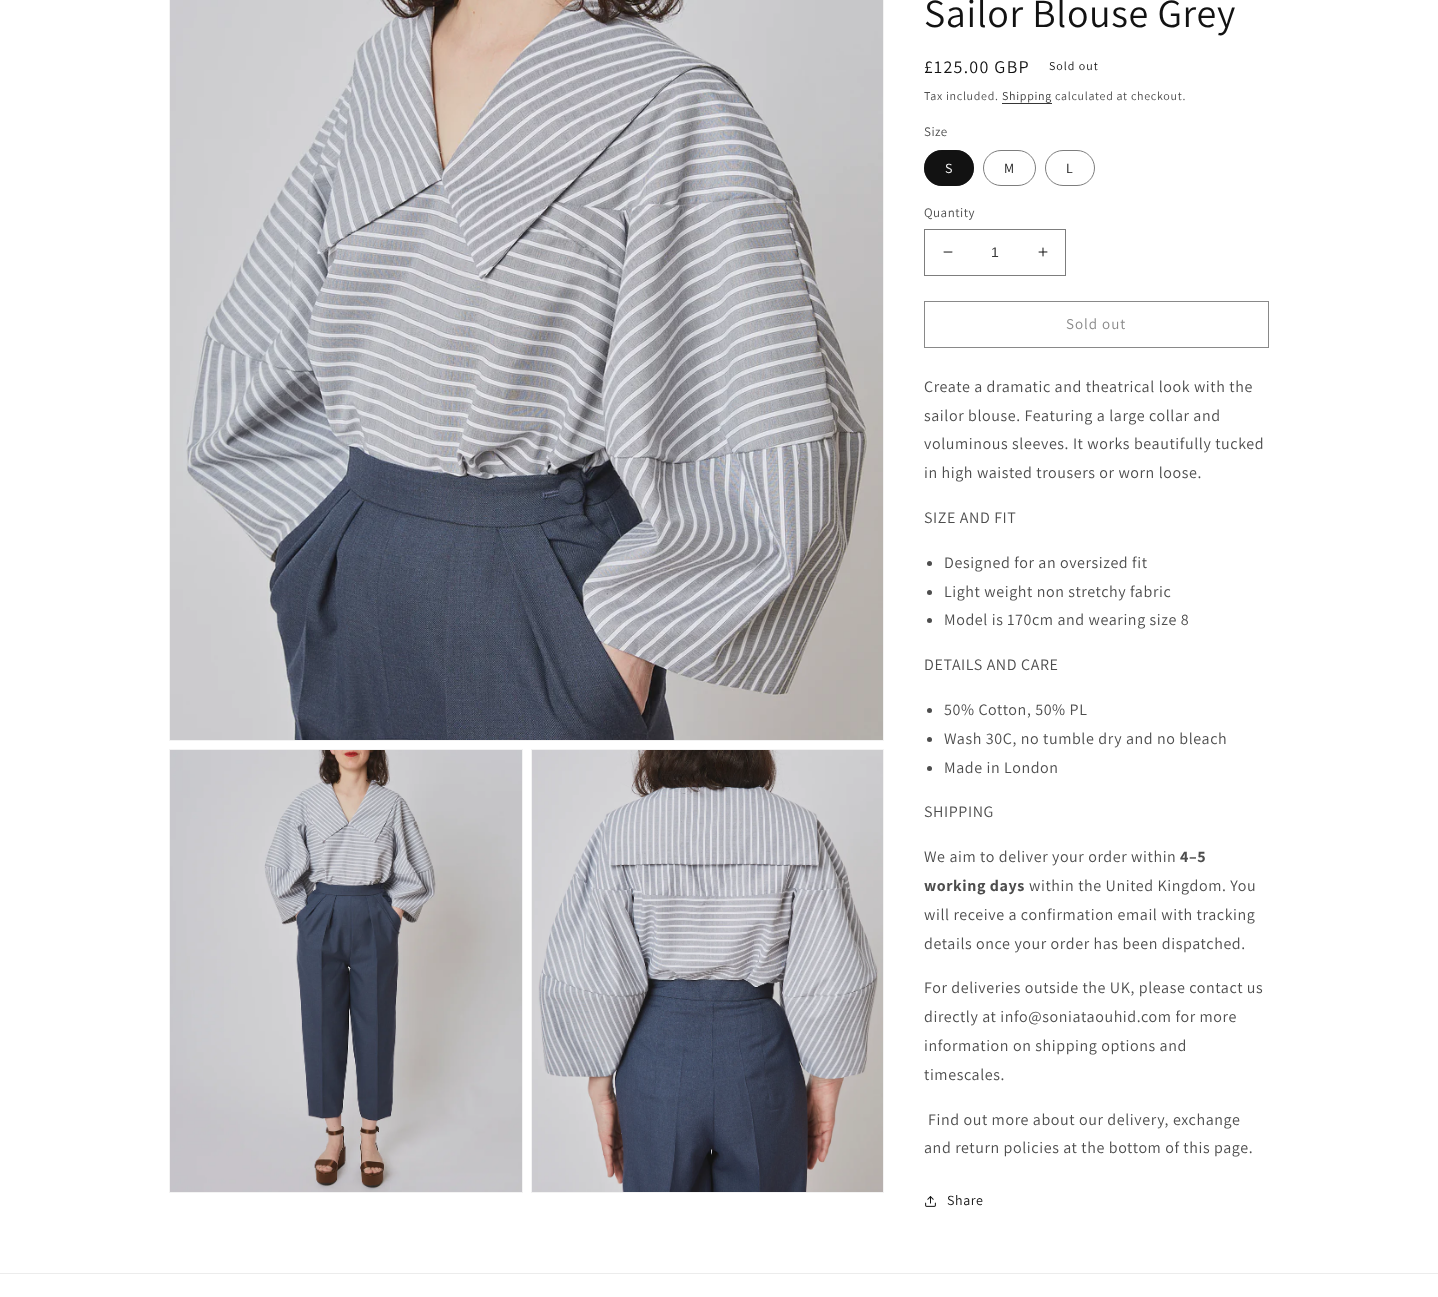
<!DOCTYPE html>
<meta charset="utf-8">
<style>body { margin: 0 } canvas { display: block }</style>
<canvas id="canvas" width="1438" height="1297"></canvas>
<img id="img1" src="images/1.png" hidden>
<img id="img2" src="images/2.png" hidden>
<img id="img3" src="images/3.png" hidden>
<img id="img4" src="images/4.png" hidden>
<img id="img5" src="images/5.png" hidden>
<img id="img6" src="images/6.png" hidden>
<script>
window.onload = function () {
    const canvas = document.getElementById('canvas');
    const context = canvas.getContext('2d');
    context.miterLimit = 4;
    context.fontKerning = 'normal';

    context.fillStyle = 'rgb(255, 255, 255)';
    context.fillRect(0, 0, 1438, 1297);
    context.strokeStyle = 'rgb(243, 243, 243)';
    context.strokeRect(169.5, -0.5, 714, 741);
    context.drawImage(document.getElementById('img1'), 170, 0, 713, 740);
    context.strokeRect(169.5, 749.5, 353, 443);
    context.drawImage(document.getElementById('img2'), 170, 750, 352, 442);
    context.strokeRect(531.5, 749.5, 352, 443);
    context.drawImage(document.getElementById('img3'), 532, 750, 351, 442);
    context.fillStyle = 'rgb(54, 54, 54)';
    context.fillRect(1002, 103, 50, 1);
    context.fillStyle = 'rgb(18, 18, 18)';
    context.beginPath();
    context.roundRect(924, 150, 50, 36, 18);
    context.fill();
    context.beginPath();
    context.roundRect(924.5, 150.5, 49, 35, 17.5);
    context.strokeStyle = 'rgba(18, 18, 18, 0.55)';
    context.stroke();
    context.beginPath();
    context.roundRect(983.5, 150.5, 52, 35, 17.5);
    context.strokeStyle = 'rgb(125, 125, 125)';
    context.stroke();
    context.beginPath();
    context.roundRect(1045.5, 150.5, 49, 35, 17.5);
    context.stroke();
    context.drawImage(document.getElementById('img4'), 943, 251, 10, 2);
    context.drawImage(document.getElementById('img5'), 1038, 247, 10, 10);
    context.strokeRect(924.5, 229.5, 141, 46);
    context.strokeStyle = 'rgb(137, 137, 137)';
    context.strokeRect(924.5, 301.5, 344, 46);
    context.fillStyle = 'rgb(77, 77, 77)';
    context.beginPath();
    context.arc(929.5, 563.5, 2.5, 0, 2 * Math.PI);
    context.fill();
    context.beginPath();
    context.arc(929.5, 592.5, 2.5, 0, 2 * Math.PI);
    context.fill();
    context.beginPath();
    context.arc(929.5, 620.5, 2.5, 0, 2 * Math.PI);
    context.fill();
    context.beginPath();
    context.arc(929.5, 710.5, 2.5, 0, 2 * Math.PI);
    context.fill();
    context.beginPath();
    context.arc(929.5, 739.5, 2.5, 0, 2 * Math.PI);
    context.fill();
    context.beginPath();
    context.arc(929.5, 768.5, 2.5, 0, 2 * Math.PI);
    context.fill();
    context.drawImage(document.getElementById('img6'), 925, 1196, 11, 11);
    context.fillStyle = 'rgb(236, 236, 236)';
    context.fillRect(0, 1273, 1438, 1);
    context.letterSpacing = '0.6px';
    context.font = '40px Assistant';
    context.fillStyle = 'rgb(18, 18, 18)';
    context.fillText('Sailor Blouse Grey', 924, 27);
    context.letterSpacing = '1.25px';
    context.font = '18px Assistant';
    context.fillText('£125.00 GBP', 924, 73);
    context.letterSpacing = '1px';
    context.font = '12px Assistant';
    context.fillText('Sold out', 1049, 70);
    context.letterSpacing = '0.7px';
    context.fillStyle = 'rgb(77, 77, 77)';
    context.fillText('Tax included.', 924, 100);
    context.fillStyle = 'rgb(54, 54, 54)';
    context.fillText('Shipping', 1002, 100);
    context.fillStyle = 'rgb(77, 77, 77)';
    context.fillText('calculated at checkout.', 1055, 100);
    context.letterSpacing = '0.5px';
    context.font = '13px Assistant';
    context.fillText('Size', 924, 136);
    context.letterSpacing = '1px';
    context.font = '14px Assistant';
    context.fillStyle = 'rgb(255, 255, 255)';
    context.fillText('S', 945, 173);
    context.fillStyle = 'rgb(18, 18, 18)';
    context.fillText('M', 1004, 173);
    context.fillText('L', 1066, 173);
    context.letterSpacing = '0.5px';
    context.font = '13px Assistant';
    context.fillStyle = 'rgb(77, 77, 77)';
    context.fillText('Quantity', 924, 217);
    context.letterSpacing = '0px';
    context.font = '14px Liberation Sans';
    context.fillStyle = 'rgb(54, 54, 54)';
    context.fillText('1', 991, 257);
    context.letterSpacing = '1px';
    context.font = '15px Assistant';
    context.fillStyle = 'rgb(137, 137, 137)';
    context.fillText('Sold out', 1066, 329);
    context.letterSpacing = '0.6px';
    context.font = '16px Assistant';
    context.fillStyle = 'rgb(77, 77, 77)';
    context.fillText('Create a dramatic and theatrical look with the', 924, 392);
    context.fillText('sailor blouse. Featuring a large collar and', 924, 421);
    context.fillText('voluminous sleeves. It works beautifully tucked', 924, 449);
    context.fillText('in high waisted trousers or worn loose.', 924, 478);
    context.fillText('SIZE AND FIT', 924, 523);
    context.fillText('Designed for an oversized fit', 944, 568);
    context.fillText('Light weight non stretchy fabric', 944, 597);
    context.fillText('Model is 170cm and wearing size 8', 944, 625);
    context.fillText('DETAILS AND CARE', 924, 670);
    context.fillText('50% Cotton, 50% PL', 944, 715);
    context.fillText('Wash 30C, no tumble dry and no bleach', 944, 744);
    context.fillText('Made in London', 944, 773);
    context.fillText('SHIPPING', 924, 817);
    context.fillText('We aim to deliver your order within', 924, 862);
    context.font = 'bold 16px Assistant';
    context.fillText('4–5', 1180, 862);
    context.fillText('working days', 924, 891);
    context.font = '16px Assistant';
    context.fillText('within the United Kingdom. You', 1029, 891);
    context.fillText('will receive a confirmation email with tracking', 924, 920);
    context.fillText('details once your order has been dispatched.', 924, 949);
    context.fillText('For deliveries outside the UK, please contact us', 924, 993);
    context.fillText('directly at info@soniataouhid.com for more', 924, 1022);
    context.fillText('information on shipping options and', 924, 1051);
    context.fillText('timescales.', 924, 1080);
    context.fillText('Find out more about our delivery, exchange', 928, 1125);
    context.fillText('and return policies at the bottom of this page.', 924, 1153);
    context.font = '14px Assistant';
    context.fillStyle = 'rgb(18, 18, 18)';
    context.fillText('Share', 947, 1205);
};
</script>
